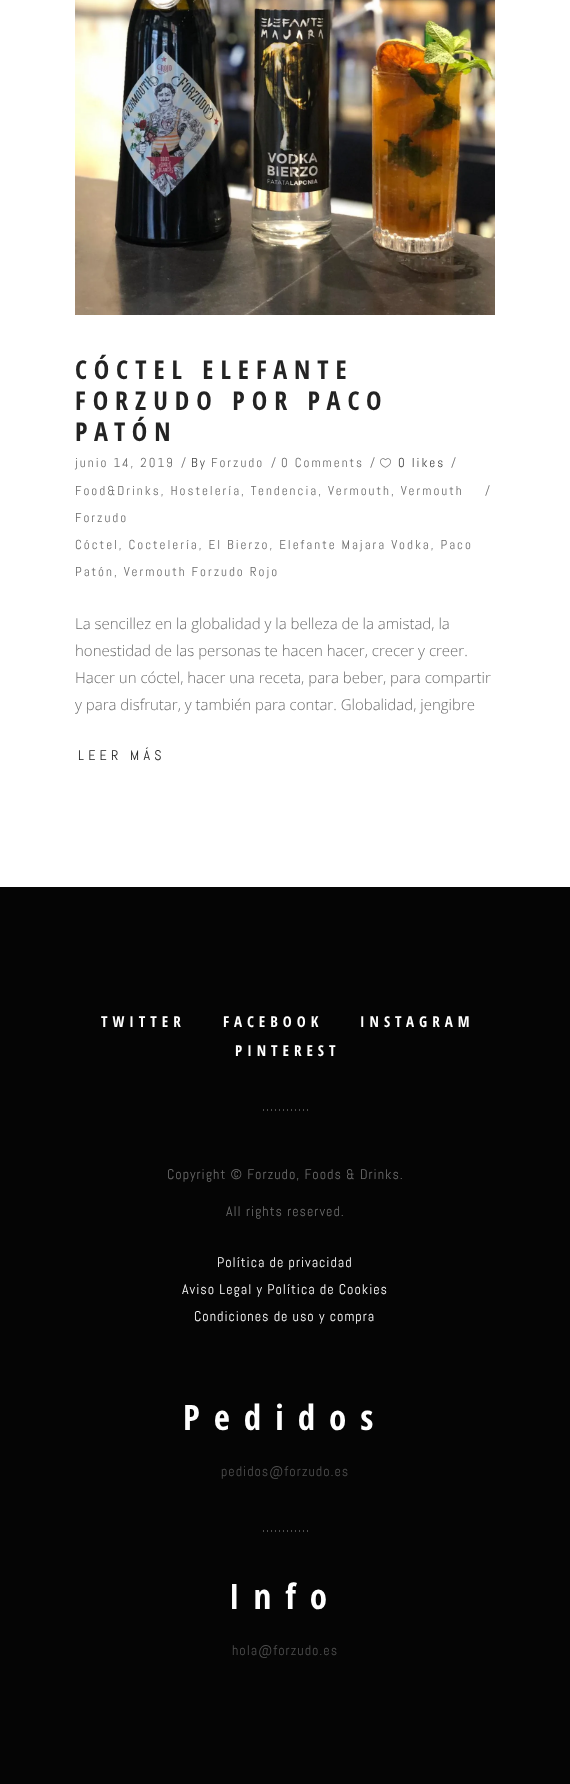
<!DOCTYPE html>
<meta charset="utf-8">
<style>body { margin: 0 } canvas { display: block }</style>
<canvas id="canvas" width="570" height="1784"></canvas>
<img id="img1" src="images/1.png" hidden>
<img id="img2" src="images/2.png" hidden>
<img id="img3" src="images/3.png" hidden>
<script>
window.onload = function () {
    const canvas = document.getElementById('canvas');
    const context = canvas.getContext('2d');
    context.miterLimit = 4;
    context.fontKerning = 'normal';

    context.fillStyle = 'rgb(255, 255, 255)';
    context.fillRect(0, 0, 570, 1784);
    context.drawImage(document.getElementById('img1'), 75, 0, 420, 315);
    context.drawImage(document.getElementById('img2'), 380, 458, 11, 10);
    context.fillStyle = 'rgb(5, 5, 5)';
    context.fillRect(0, 887, 570, 897);
    context.drawImage(document.getElementById('img3'), 263, 1109, 45, 2);
    context.drawImage(document.getElementById('img3'), 263, 1530, 45, 2);
    context.letterSpacing = '7px';
    context.font = 'bold 26px Open Sans Condensed';
    context.fillStyle = 'rgb(35, 35, 35)';
    context.fillText('CÓCTEL ELEFANTE', 75, 379);
    context.fillText('FORZUDO POR PACO', 75, 410);
    context.fillText('PATÓN', 75, 441);
    context.letterSpacing = '2px';
    context.font = '13px Abel';
    context.fillStyle = 'rgb(108, 108, 108)';
    context.fillText('junio 14, 2019', 75, 467);
    context.fillText('/', 181, 467);
    context.fillStyle = 'rgb(68, 68, 68)';
    context.fillText('By', 191, 467);
    context.fillStyle = 'rgb(108, 108, 108)';
    context.fillText('Forzudo', 211, 467);
    context.fillText('/', 271, 467);
    context.fillText('0 Comments', 281, 467);
    context.fillText('/', 370, 467);
    context.fillStyle = 'rgb(68, 68, 68)';
    context.fillText('0 likes', 398, 467);
    context.fillStyle = 'rgb(108, 108, 108)';
    context.fillText('/', 451, 467);
    context.fillText('Food&Drinks, Hostelería, Tendencia, Vermouth, Vermouth', 75, 495);
    context.fillText('/', 485, 495);
    context.fillText('Forzudo', 75, 522);
    context.fillText('Cóctel, Coctelería, El Bierzo, Elefante Majara Vodka, Paco', 75, 549);
    context.fillText('Patón, Vermouth Forzudo Rojo', 75, 576);
    context.letterSpacing = '0px';
    context.font = '300 15px Open Sans';
    context.fillText('La sencillez en la globalidad y la belleza de la amistad, la', 75, 629);
    context.fillText('honestidad de las personas te hacen hacer, crecer y creer.', 75, 656);
    context.fillText('Hacer un cóctel, hacer una receta, para beber, para compartir', 75, 683);
    context.fillText('y para disfrutar, y también para contar. Globalidad, jengibre', 75, 710);
    context.letterSpacing = '4.25px';
    context.font = '14px Abel';
    context.fillStyle = 'rgb(35, 35, 35)';
    context.fillText('LEER MÁS', 78, 760);
    context.letterSpacing = '5px';
    context.font = 'bold 15px Open Sans Condensed';
    context.fillStyle = 'rgb(255, 255, 255)';
    context.fillText('TWITTER', 101, 1027);
    context.fillText('FACEBOOK', 223, 1027);
    context.fillText('INSTAGRAM', 360, 1027);
    context.fillText('PINTEREST', 235, 1056);
    context.letterSpacing = '1px';
    context.font = '14px Abel';
    context.fillStyle = 'rgb(108, 108, 108)';
    context.fillText('Copyright © Forzudo, Foods & Drinks.', 167, 1179);
    context.fillText('All rights reserved.', 226, 1216);
    context.fillStyle = 'rgb(255, 255, 255)';
    context.fillText('Política de privacidad', 217, 1267);
    context.fillText('Aviso Legal y Política de Cookies', 182, 1294);
    context.fillText('Condiciones de uso y compra', 194, 1321);
    context.letterSpacing = '14px';
    context.font = 'bold 35px Open Sans Condensed';
    context.fillText('Pedidos', 183, 1430);
    context.letterSpacing = '1px';
    context.font = '14px Abel';
    context.fillStyle = 'rgb(80, 80, 80)';
    context.fillText('pedidos@forzudo.es', 221, 1476);
    context.letterSpacing = '14px';
    context.font = 'bold 35px Open Sans Condensed';
    context.fillStyle = 'rgb(255, 255, 255)';
    context.fillText('Info', 229, 1609);
    context.letterSpacing = '1px';
    context.font = '14px Abel';
    context.fillStyle = 'rgb(80, 80, 80)';
    context.fillText('hola@forzudo.es', 232, 1655);
};
</script>
